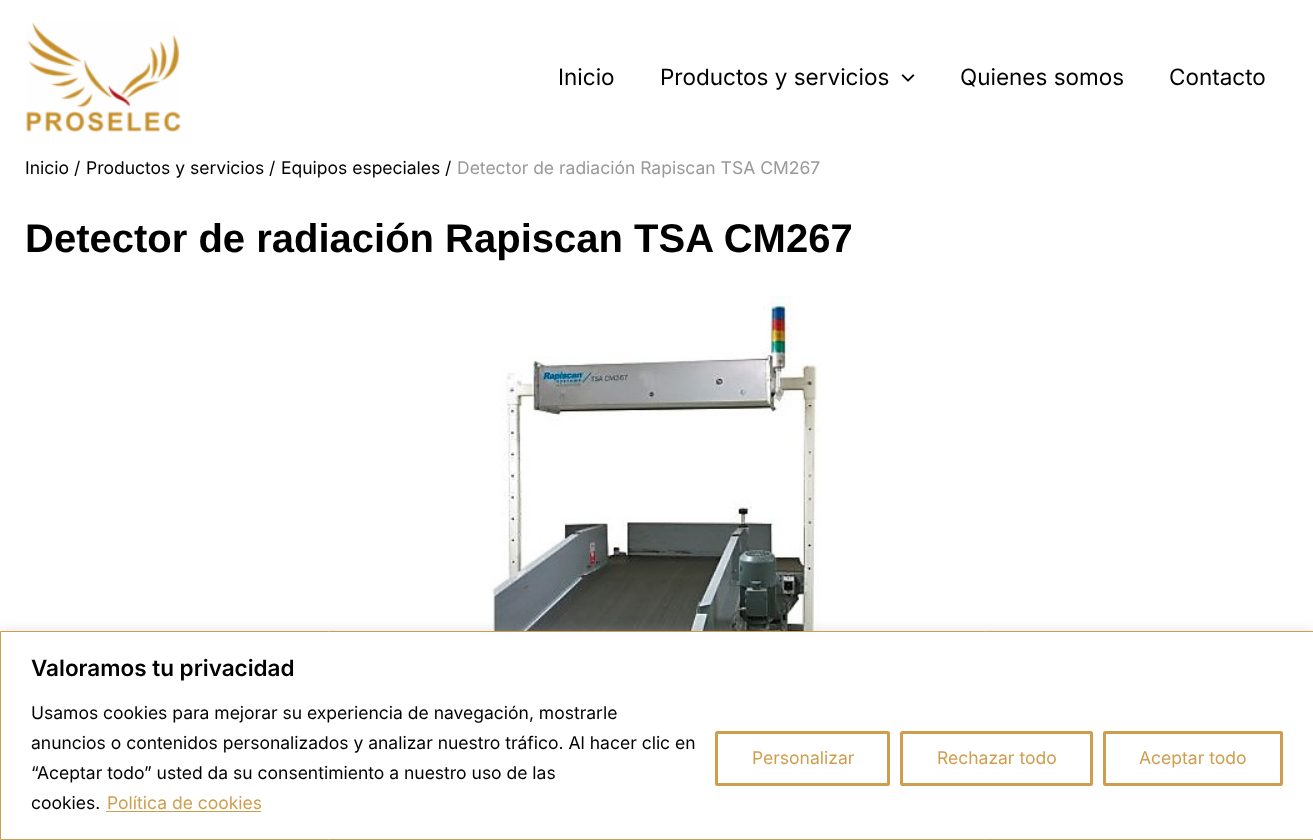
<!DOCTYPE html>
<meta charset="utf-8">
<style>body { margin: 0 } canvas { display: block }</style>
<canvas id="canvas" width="1313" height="840"></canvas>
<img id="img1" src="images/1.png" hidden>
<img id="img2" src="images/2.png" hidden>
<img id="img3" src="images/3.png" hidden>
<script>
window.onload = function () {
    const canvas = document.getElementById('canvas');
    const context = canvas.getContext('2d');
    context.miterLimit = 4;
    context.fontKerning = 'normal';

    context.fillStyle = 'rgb(255, 255, 255)';
    context.fillRect(0, 0, 1313, 840);
    context.drawImage(document.getElementById('img1'), 26, 22, 155, 110);
    context.drawImage(document.getElementById('img2'), 901, 74, 14, 8);
    context.drawImage(document.getElementById('img3'), 490, 296, 334, 335);
    context.fillStyle = 'rgba(172, 171, 171, 0.3)';
    context.filter = 'blur(6px)';
    context.beginPath();
    context.rect(0, 630, 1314, 209);
    context.fill();
    context.filter = 'none';
    context.fillStyle = 'rgb(255, 255, 255)';
    context.beginPath();
    context.rect(0.5, 631.5, 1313, 208);
    context.fill();
    context.strokeStyle = 'rgb(206, 158, 78)';
    context.stroke();
    context.fillStyle = 'rgb(206, 158, 78)';
    context.fillRect(106, 811, 155, 1);
    context.beginPath();
    context.roundRect(716.5, 732.5, 172, 52, 1);
    context.lineWidth = 3;
    context.stroke();
    context.beginPath();
    context.roundRect(901.5, 732.5, 190, 52, 1);
    context.stroke();
    context.beginPath();
    context.roundRect(1104.5, 732.5, 177, 52, 1);
    context.stroke();
    context.font = '22.5px Inter';
    context.fillStyle = 'rgb(0, 0, 0)';
    context.fillText('Inicio', 558, 85);
    context.fillText('Productos y servicios', 660, 85);
    context.fillText('Quienes somos', 960, 85);
    context.fillText('Contacto', 1169, 85);
    context.font = '17.5px Inter';
    context.fillText('Inicio', 25, 174);
    context.fillText('/', 74, 174);
    context.fillText('Productos y servicios', 86, 174);
    context.fillText('/', 269, 174);
    context.fillText('Equipos especiales', 281, 174);
    context.fillText('/', 445, 174);
    context.fillStyle = 'rgb(153, 153, 153)';
    context.fillText('Detector de radiación Rapiscan TSA CM267', 457, 174);
    context.font = 'bold 40px Liberation Sans';
    context.fillStyle = 'rgb(0, 0, 0)';
    context.fillText('Detector de radiación Rapiscan TSA CM267', 25, 252);
    context.font = '600 22.5px Inter';
    context.fillText('Valoramos tu privacidad', 31, 676);
    context.font = '17.5px Inter';
    context.fillText('Usamos cookies para mejorar su experiencia de navegación, mostrarle', 31, 719);
    context.fillText('anuncios o contenidos personalizados y analizar nuestro tráfico. Al hacer clic en', 31, 749);
    context.fillText('“Aceptar todo” usted da su consentimiento a nuestro uso de las', 31, 779);
    context.fillText('cookies.', 31, 809);
    context.fillStyle = 'rgb(206, 158, 78)';
    context.fillText('Política de cookies', 107, 809);
    context.fillText('Personalizar', 752, 764);
    context.fillText('Rechazar todo', 937, 764);
    context.fillText('Aceptar todo', 1139, 764);
};
</script>
